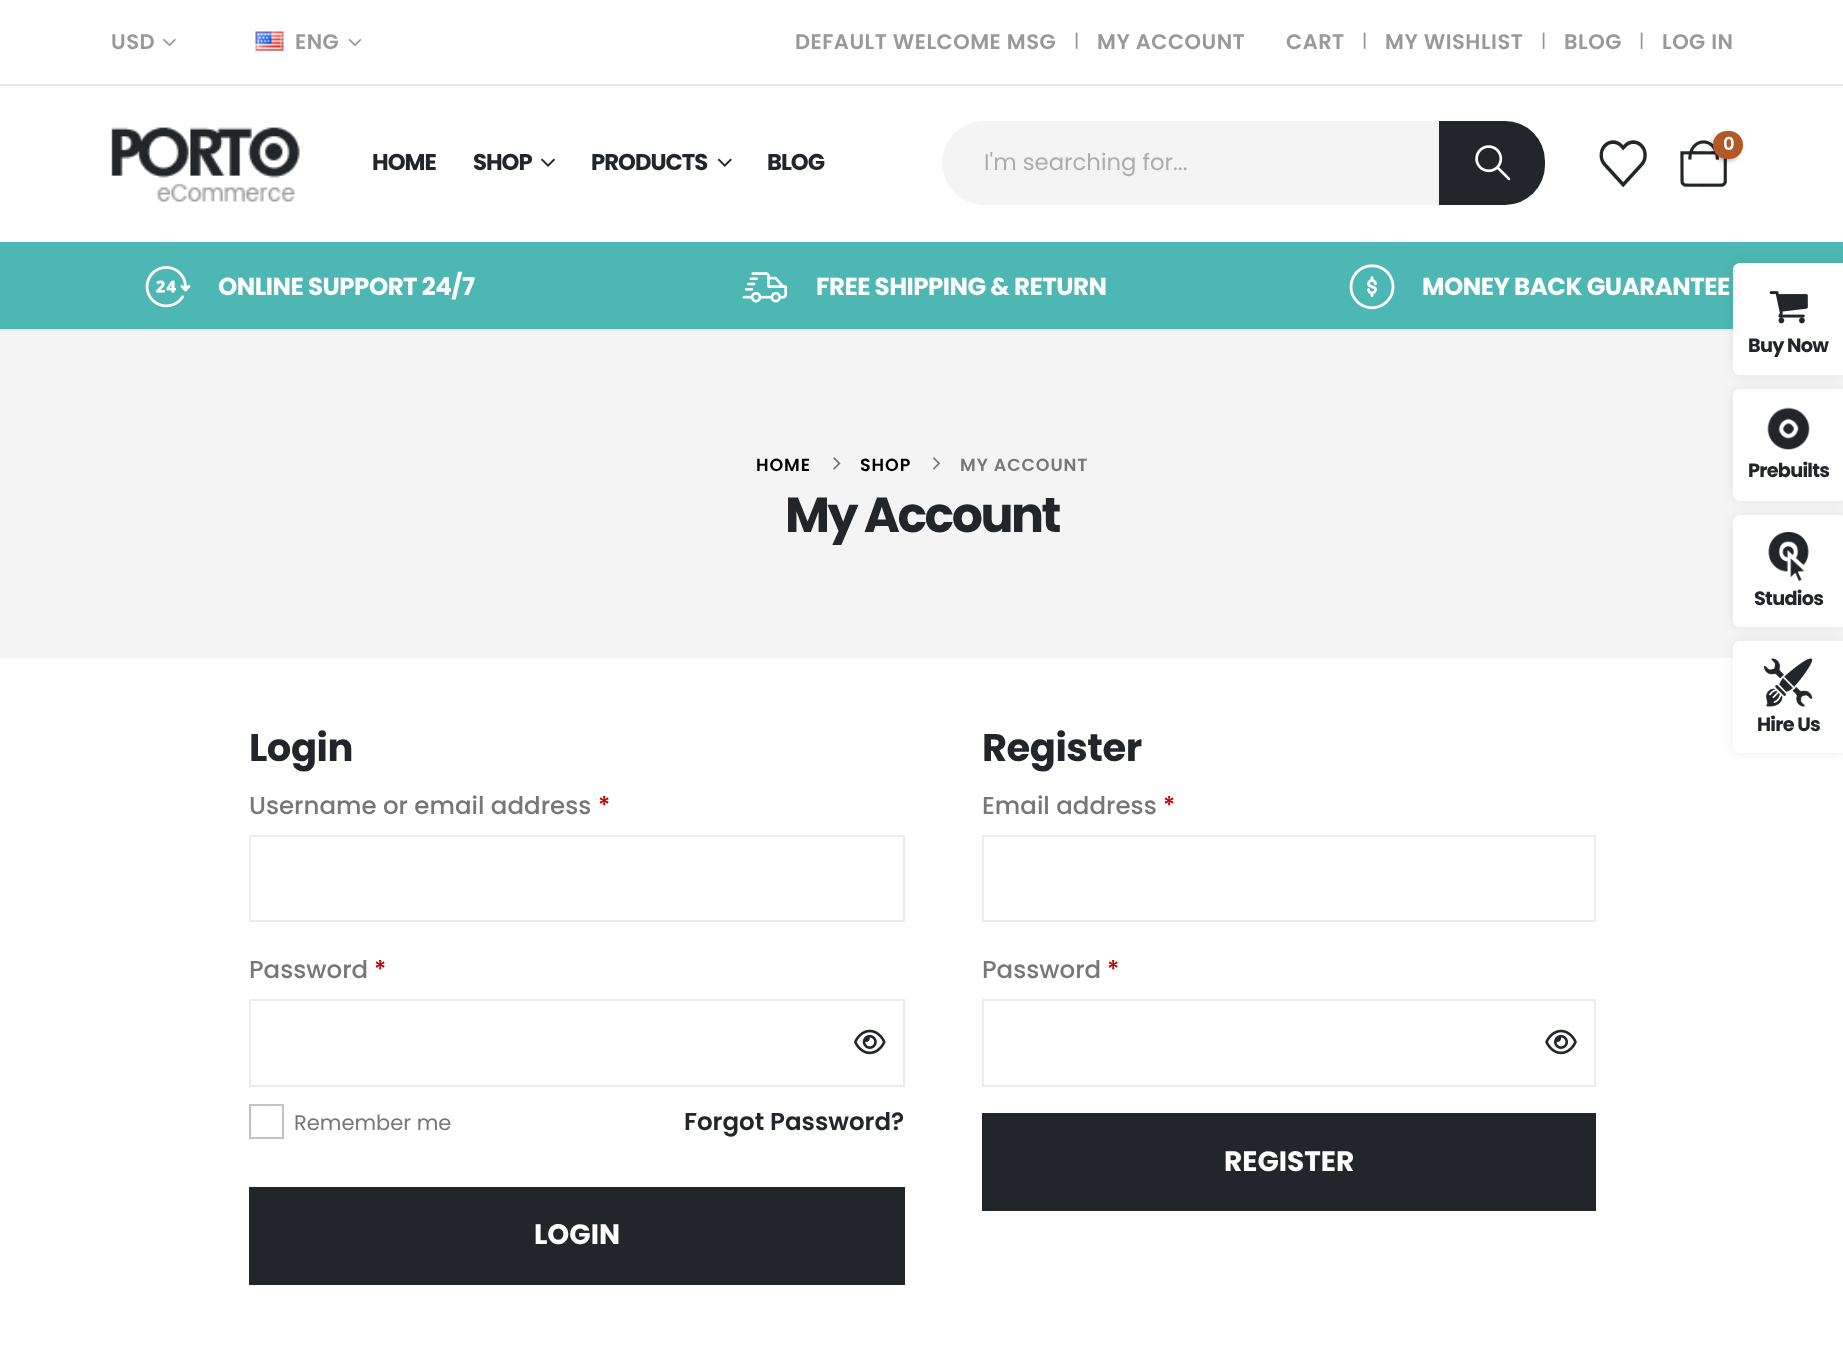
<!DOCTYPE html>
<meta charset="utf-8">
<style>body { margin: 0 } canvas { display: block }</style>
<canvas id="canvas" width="1843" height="1365"></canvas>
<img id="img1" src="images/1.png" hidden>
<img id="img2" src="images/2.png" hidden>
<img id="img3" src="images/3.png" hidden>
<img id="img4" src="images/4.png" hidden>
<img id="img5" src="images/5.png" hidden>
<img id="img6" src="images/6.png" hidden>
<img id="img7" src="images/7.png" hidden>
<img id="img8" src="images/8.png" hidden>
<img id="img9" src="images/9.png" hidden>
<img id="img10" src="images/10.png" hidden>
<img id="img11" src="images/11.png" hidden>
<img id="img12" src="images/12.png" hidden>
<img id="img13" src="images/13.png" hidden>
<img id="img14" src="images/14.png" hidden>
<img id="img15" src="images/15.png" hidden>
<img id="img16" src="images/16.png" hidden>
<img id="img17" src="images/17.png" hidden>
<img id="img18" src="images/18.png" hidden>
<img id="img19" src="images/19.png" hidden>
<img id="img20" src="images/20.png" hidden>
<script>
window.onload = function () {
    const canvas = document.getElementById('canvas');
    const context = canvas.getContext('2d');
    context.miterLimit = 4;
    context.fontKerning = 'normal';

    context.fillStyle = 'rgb(255, 255, 255)';
    context.fillRect(0, 0, 1843, 1365);
    context.fillStyle = 'rgb(231, 231, 231)';
    context.fillRect(0, 84, 1843, 2);
    context.drawImage(document.getElementById('img1'), 163, 38, 13, 9);
    context.drawImage(document.getElementById('img2'), 255, 31, 29, 20);
    context.drawImage(document.getElementById('img3'), 348, 38, 14, 9);
    context.drawImage(document.getElementById('img4'), 111, 127, 189, 75);
    context.drawImage(document.getElementById('img5'), 541, 158, 14, 9);
    context.drawImage(document.getElementById('img6'), 717, 158, 15, 9);
    context.fillStyle = 'rgb(244, 244, 244)';
    context.beginPath();
    context.roundRect(942, 121, 603, 84, 42);
    context.fill();
    context.fillStyle = 'rgb(34, 37, 41)';
    context.beginPath();
    context.roundRect(1439, 121, 106, 84, [0, 40, 40, 0]);
    context.fill();
    context.drawImage(document.getElementById('img7'), 1475, 145, 36, 36);
    context.drawImage(document.getElementById('img8'), 1599, 140, 48, 48);
    context.drawImage(document.getElementById('img9'), 1680, 140, 47, 47);
    context.fillStyle = 'rgba(0, 0, 0, 0.3)';
    context.filter = 'blur(2px)';
    context.beginPath();
    context.roundRect(1712, 133, 29, 28, 14);
    context.fill();
    context.filter = 'none';
    context.fillStyle = 'rgb(179, 88, 39)';
    context.beginPath();
    context.roundRect(1713, 131, 30, 28, 14);
    context.fill();
    context.fillStyle = 'rgb(77, 183, 179)';
    context.fillRect(0, 242, 1843, 87);
    context.drawImage(document.getElementById('img10'), 145, 266, 46, 42);
    context.drawImage(document.getElementById('img11'), 742, 272, 45, 31);
    context.drawImage(document.getElementById('img12'), 1349, 264, 46, 46);
    context.fillStyle = 'rgb(244, 244, 244)';
    context.fillRect(0, 331, 1843, 327);
    context.fillStyle = 'rgb(231, 231, 231)';
    context.fillRect(0, 329, 1733, 2);
    context.drawImage(document.getElementById('img13'), 833, 457, 8, 13);
    context.drawImage(document.getElementById('img14'), 932, 457, 9, 13);
    context.strokeStyle = 'rgb(235, 235, 235)';
    context.lineWidth = 2;
    context.strokeRect(250, 836, 654, 85);
    context.strokeRect(250, 1000, 654, 86);
    context.drawImage(document.getElementById('img15'), 854, 1029, 32, 26);
    context.strokeStyle = 'rgb(194, 192, 202)';
    context.strokeRect(250, 1105, 33, 33);
    context.fillStyle = 'rgb(34, 37, 41)';
    context.fillRect(249, 1187, 656, 98);
    context.strokeStyle = 'rgb(235, 235, 235)';
    context.strokeRect(983, 836, 612, 85);
    context.strokeRect(983, 1000, 612, 86);
    context.drawImage(document.getElementById('img16'), 1545, 1029, 32, 26);
    context.fillRect(982, 1113, 614, 98);
    context.fillStyle = 'rgba(0, 0, 0, 0.07)';
    context.filter = 'blur(6px)';
    context.beginPath();
    context.roundRect(1733, 263, 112, 112, 7);
    context.fill();
    context.filter = 'none';
    context.fillStyle = 'rgb(255, 255, 255)';
    context.beginPath();
    context.moveTo(1740, 263);
    context.lineTo(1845, 263);
    context.lineTo(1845, 375);
    context.lineTo(1740, 375);
    context.bezierCurveTo(1736, 375, 1733, 372, 1733, 368);
    context.lineTo(1733, 270);
    context.bezierCurveTo(1733, 266, 1736, 263, 1740, 263);
    context.closePath();
    context.fill();
    context.drawImage(document.getElementById('img17'), 1769, 291, 39, 33);
    context.fillStyle = 'rgba(0, 0, 0, 0.07)';
    context.filter = 'blur(6px)';
    context.beginPath();
    context.roundRect(1733, 389, 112, 112, 7);
    context.fill();
    context.filter = 'none';
    context.fillStyle = 'rgb(255, 255, 255)';
    context.beginPath();
    context.moveTo(1740, 389);
    context.lineTo(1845, 389);
    context.lineTo(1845, 501);
    context.lineTo(1740, 501);
    context.bezierCurveTo(1736, 501, 1733, 498, 1733, 494);
    context.lineTo(1733, 396);
    context.bezierCurveTo(1733, 392, 1736, 389, 1740, 389);
    context.closePath();
    context.fill();
    context.drawImage(document.getElementById('img18'), 1767, 407, 43, 43);
    context.fillStyle = 'rgba(0, 0, 0, 0.07)';
    context.filter = 'blur(6px)';
    context.beginPath();
    context.roundRect(1733, 515, 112, 112, 7);
    context.fill();
    context.filter = 'none';
    context.fillStyle = 'rgb(255, 255, 255)';
    context.beginPath();
    context.moveTo(1740, 515);
    context.lineTo(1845, 515);
    context.lineTo(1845, 627);
    context.lineTo(1740, 627);
    context.bezierCurveTo(1736, 627, 1733, 624, 1733, 620);
    context.lineTo(1733, 522);
    context.bezierCurveTo(1733, 518, 1736, 515, 1740, 515);
    context.closePath();
    context.fill();
    context.drawImage(document.getElementById('img19'), 1768, 532, 41, 49);
    context.fillStyle = 'rgba(0, 0, 0, 0.07)';
    context.filter = 'blur(6px)';
    context.beginPath();
    context.roundRect(1733, 641, 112, 112, 7);
    context.fill();
    context.filter = 'none';
    context.fillStyle = 'rgb(255, 255, 255)';
    context.beginPath();
    context.moveTo(1740, 641);
    context.lineTo(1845, 641);
    context.lineTo(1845, 753);
    context.lineTo(1740, 753);
    context.bezierCurveTo(1736, 753, 1733, 750, 1733, 746);
    context.lineTo(1733, 648);
    context.bezierCurveTo(1733, 644, 1736, 641, 1740, 641);
    context.closePath();
    context.fill();
    context.drawImage(document.getElementById('img20'), 1764, 658, 49, 49);
    context.letterSpacing = '0.5px';
    context.font = '600 21px Poppins';
    context.fillStyle = 'rgb(153, 153, 153)';
    context.fillText('USD', 111, 49);
    context.fillText('ENG', 295, 49);
    context.fillText('DEFAULT WELCOME MSG', 795, 49);
    context.letterSpacing = '0px';
    context.font = '18px Poppins';
    context.fillStyle = 'rgb(146, 146, 146)';
    context.fillText('|', 1074, 47);
    context.letterSpacing = '0.5px';
    context.font = '600 21px Poppins';
    context.fillStyle = 'rgb(153, 153, 153)';
    context.fillText('MY ACCOUNT', 1097, 49);
    context.fillText('CART', 1286, 49);
    context.letterSpacing = '0px';
    context.font = '18px Poppins';
    context.fillStyle = 'rgb(146, 146, 146)';
    context.fillText('|', 1362, 47);
    context.letterSpacing = '0.5px';
    context.font = '600 21px Poppins';
    context.fillStyle = 'rgb(153, 153, 153)';
    context.fillText('MY WISHLIST', 1385, 49);
    context.letterSpacing = '0px';
    context.font = '18px Poppins';
    context.fillStyle = 'rgb(146, 146, 146)';
    context.fillText('|', 1541, 47);
    context.letterSpacing = '0.5px';
    context.font = '600 21px Poppins';
    context.fillStyle = 'rgb(153, 153, 153)';
    context.fillText('BLOG', 1564, 49);
    context.letterSpacing = '0px';
    context.font = '18px Poppins';
    context.fillStyle = 'rgb(146, 146, 146)';
    context.fillText('|', 1639, 47);
    context.letterSpacing = '0.5px';
    context.font = '600 21px Poppins';
    context.fillStyle = 'rgb(153, 153, 153)';
    context.fillText('LOG IN', 1662, 49);
    context.letterSpacing = '-1px';
    context.font = 'bold 22.75px Poppins';
    context.fillStyle = 'rgb(34, 37, 41)';
    context.fillText('HOME', 372, 170);
    context.fillText('SHOP', 473, 170);
    context.fillText('PRODUCTS', 591, 170);
    context.fillText('BLOG', 767, 170);
    context.letterSpacing = '0px';
    context.font = '22.75px Poppins';
    context.fillStyle = 'rgb(172, 172, 172)';
    context.fillText('I\'m searching for...', 984, 170);
    context.font = '600 18px Poppins';
    context.fillStyle = 'rgb(255, 255, 255)';
    context.fillText('0', 1723, 150);
    context.letterSpacing = '-0.5px';
    context.font = 'bold 24.5px Poppins';
    context.fillText('ONLINE SUPPORT 24/7', 218, 295);
    context.fillText('FREE SHIPPING & RETURN', 816, 295);
    context.fillText('MONEY BACK GUARANTEE', 1422, 295);
    context.letterSpacing = '0.9px';
    context.font = '600 17.5px Poppins';
    context.fillStyle = 'rgb(0, 0, 0)';
    context.fillText('HOME', 756, 471);
    context.fillText('SHOP', 860, 471);
    context.fillStyle = 'rgb(119, 119, 119)';
    context.fillText('MY ACCOUNT', 960, 471);
    context.letterSpacing = '-2.5px';
    context.font = 'bold 49px Poppins';
    context.fillStyle = 'rgb(34, 37, 41)';
    context.fillText('My Account', 785, 532);
    context.letterSpacing = '-0.5px';
    context.font = 'bold 38.5px Poppins';
    context.fillText('Login', 249, 761);
    context.letterSpacing = '0px';
    context.font = '500 24.5px Poppins';
    context.fillStyle = 'rgb(119, 119, 119)';
    context.fillText('Username or email address', 249, 814);
    context.fillStyle = 'rgb(193, 0, 0)';
    context.fillText('*', 598, 814);
    context.fillStyle = 'rgb(119, 119, 119)';
    context.fillText('Password', 249, 978);
    context.fillStyle = 'rgb(193, 0, 0)';
    context.fillText('*', 374, 978);
    context.font = '21px Poppins';
    context.fillStyle = 'rgb(119, 119, 119)';
    context.fillText('Remember me', 294, 1130);
    context.font = '600 24.5px Poppins';
    context.fillStyle = 'rgb(34, 37, 41)';
    context.fillText('Forgot Password?', 684, 1130);
    context.font = 'bold 28px Poppins';
    context.fillStyle = 'rgb(255, 255, 255)';
    context.fillText('LOGIN', 534, 1244);
    context.letterSpacing = '-0.5px';
    context.font = 'bold 38.5px Poppins';
    context.fillStyle = 'rgb(34, 37, 41)';
    context.fillText('Register', 982, 761);
    context.letterSpacing = '0px';
    context.font = '500 24.5px Poppins';
    context.fillStyle = 'rgb(119, 119, 119)';
    context.fillText('Email address', 982, 814);
    context.fillStyle = 'rgb(193, 0, 0)';
    context.fillText('*', 1163, 814);
    context.fillStyle = 'rgb(119, 119, 119)';
    context.fillText('Password', 982, 978);
    context.fillStyle = 'rgb(193, 0, 0)';
    context.fillText('*', 1107, 978);
    context.font = 'bold 28px Poppins';
    context.fillStyle = 'rgb(255, 255, 255)';
    context.fillText('REGISTER', 1224, 1171);
    context.letterSpacing = '-0.75px';
    context.font = 'bold 19.25px Poppins';
    context.fillStyle = 'rgb(34, 37, 41)';
    context.fillText('Buy Now', 1748, 352);
    context.fillText('Prebuilts', 1748, 477);
    context.fillText('Studios', 1754, 605);
    context.fillText('Hire Us', 1757, 731);
};
</script>
